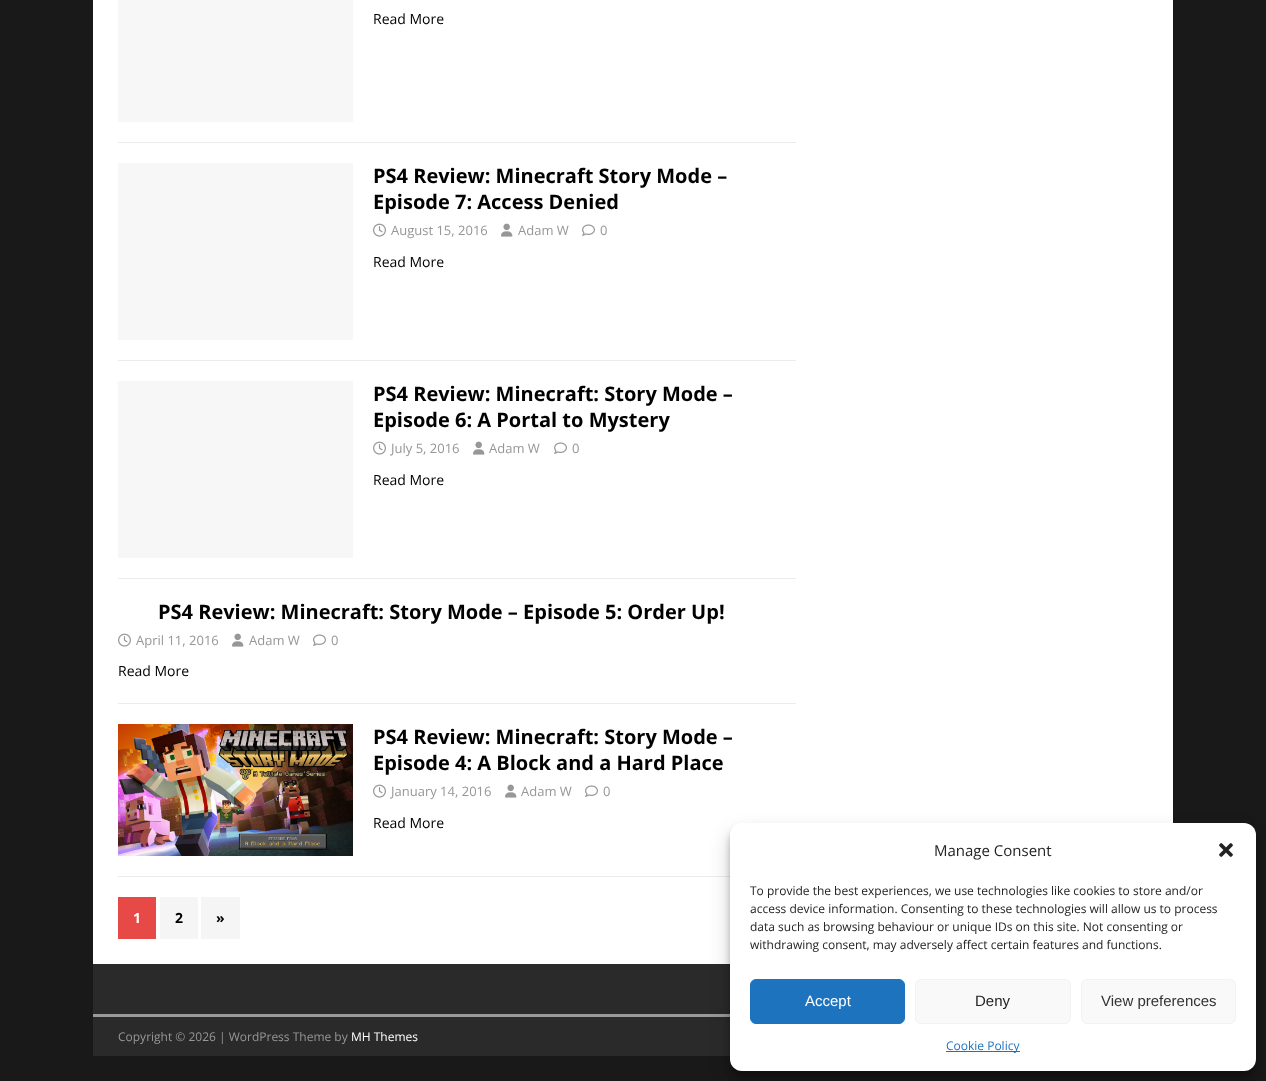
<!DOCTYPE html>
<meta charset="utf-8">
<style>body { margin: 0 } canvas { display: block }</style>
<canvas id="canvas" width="1266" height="1081"></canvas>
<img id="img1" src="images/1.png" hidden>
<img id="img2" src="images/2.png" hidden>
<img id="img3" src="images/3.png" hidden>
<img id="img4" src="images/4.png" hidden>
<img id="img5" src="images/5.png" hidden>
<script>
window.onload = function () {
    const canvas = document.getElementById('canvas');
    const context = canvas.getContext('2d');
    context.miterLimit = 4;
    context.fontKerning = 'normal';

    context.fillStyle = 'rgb(25, 25, 25)';
    context.fillRect(0, 0, 1266, 1081);
    context.fillStyle = 'rgb(255, 255, 255)';
    context.fillRect(93, 0, 1080, 964);
    context.fillStyle = 'rgb(235, 235, 235)';
    context.fillRect(118, 142, 678, 1);
    context.fillStyle = 'rgb(247, 247, 247)';
    context.fillRect(118, 0, 235, 122);
    context.fillStyle = 'rgb(235, 235, 235)';
    context.fillRect(118, 360, 678, 1);
    context.fillStyle = 'rgb(247, 247, 247)';
    context.fillRect(118, 163, 235, 177);
    context.drawImage(document.getElementById('img1'), 373, 223, 13, 14);
    context.drawImage(document.getElementById('img2'), 501, 223, 12, 14);
    context.drawImage(document.getElementById('img3'), 582, 224, 13, 12);
    context.fillStyle = 'rgb(235, 235, 235)';
    context.fillRect(118, 578, 678, 1);
    context.fillStyle = 'rgb(247, 247, 247)';
    context.fillRect(118, 381, 235, 177);
    context.drawImage(document.getElementById('img1'), 373, 441, 13, 14);
    context.drawImage(document.getElementById('img2'), 473, 441, 12, 14);
    context.drawImage(document.getElementById('img3'), 554, 442, 13, 12);
    context.fillStyle = 'rgb(235, 235, 235)';
    context.fillRect(118, 703, 678, 1);
    context.drawImage(document.getElementById('img1'), 118, 633, 13, 14);
    context.drawImage(document.getElementById('img2'), 232, 633, 12, 14);
    context.drawImage(document.getElementById('img3'), 313, 634, 13, 12);
    context.fillRect(118, 876, 612, 1);
    context.drawImage(document.getElementById('img4'), 118, 724, 235, 132);
    context.drawImage(document.getElementById('img1'), 373, 784, 13, 14);
    context.drawImage(document.getElementById('img2'), 505, 784, 12, 14);
    context.drawImage(document.getElementById('img3'), 585, 785, 13, 12);
    context.fillStyle = 'rgb(230, 73, 70)';
    context.fillRect(118, 897, 38, 42);
    context.fillStyle = 'rgb(245, 245, 245)';
    context.fillRect(160, 897, 38, 42);
    context.fillRect(201, 897, 39, 42);
    context.fillStyle = 'rgb(42, 42, 42)';
    context.fillRect(93, 964, 637, 50);
    context.fillRect(93, 1017, 637, 39);
    context.fillStyle = 'rgb(153, 153, 153)';
    context.fillRect(93, 1014, 637, 3);
    context.fillStyle = 'rgba(0, 0, 0, 0.23)';
    context.filter = 'blur(3px)';
    context.beginPath();
    context.roundRect(730, 829, 526, 248, 12);
    context.fill();
    context.filter = 'none';
    context.fillStyle = 'rgba(0, 0, 0, 0.19)';
    context.filter = 'blur(10px)';
    context.beginPath();
    context.roundRect(730, 833, 526, 248, 12);
    context.fill();
    context.filter = 'none';
    context.fillStyle = 'rgb(255, 255, 255)';
    context.beginPath();
    context.roundRect(730, 823, 526, 248, 12);
    context.fill();
    context.drawImage(document.getElementById('img5'), 1219, 843, 14, 14);
    context.fillStyle = 'rgb(30, 115, 190)';
    context.beginPath();
    context.roundRect(750.5, 979.5, 154, 44, 5.5);
    context.fill();
    context.strokeStyle = 'rgb(30, 115, 190)';
    context.stroke();
    context.fillStyle = 'rgb(249, 249, 249)';
    context.beginPath();
    context.roundRect(915.5, 979.5, 155, 44, 5.5);
    context.fill();
    context.strokeStyle = 'rgb(242, 242, 242)';
    context.stroke();
    context.beginPath();
    context.roundRect(1081.5, 979.5, 154, 44, 5.5);
    context.fill();
    context.stroke();
    context.fillStyle = 'rgb(30, 115, 190)';
    context.fillRect(946, 1051, 74, 1);
    context.font = '14px Open Sans';
    context.fillStyle = 'rgb(0, 0, 0)';
    context.fillText('Read More', 373, 24);
    context.font = 'bold 20px Open Sans';
    context.fillText('PS4 Review: Minecraft Story Mode –', 373, 183);
    context.fillText('Episode 7: Access Denied', 373, 209);
    context.font = '13px Open Sans';
    context.fillStyle = 'rgb(151, 151, 151)';
    context.fillText('August 15, 2016', 391, 235);
    context.fillText('Adam W', 518, 235);
    context.fillText('0', 600, 235);
    context.font = '14px Open Sans';
    context.fillStyle = 'rgb(0, 0, 0)';
    context.fillText('Read More', 373, 267);
    context.font = 'bold 20px Open Sans';
    context.fillText('PS4 Review: Minecraft: Story Mode –', 373, 401);
    context.fillText('Episode 6: A Portal to Mystery', 373, 427);
    context.font = '13px Open Sans';
    context.fillStyle = 'rgb(151, 151, 151)';
    context.fillText('July 5, 2016', 391, 453);
    context.fillText('Adam W', 489, 453);
    context.fillText('0', 572, 453);
    context.font = '14px Open Sans';
    context.fillStyle = 'rgb(0, 0, 0)';
    context.fillText('Read More', 373, 485);
    context.font = 'bold 20px Open Sans';
    context.fillText('PS4 Review: Minecraft: Story Mode – Episode 5: Order Up!', 158, 619);
    context.font = '13px Open Sans';
    context.fillStyle = 'rgb(151, 151, 151)';
    context.fillText('April 11, 2016', 136, 645);
    context.fillText('Adam W', 249, 645);
    context.fillText('0', 331, 645);
    context.font = '14px Open Sans';
    context.fillStyle = 'rgb(0, 0, 0)';
    context.fillText('Read More', 118, 676);
    context.font = 'bold 20px Open Sans';
    context.fillText('PS4 Review: Minecraft: Story Mode –', 373, 744);
    context.fillText('Episode 4: A Block and a Hard Place', 373, 770);
    context.font = '13px Open Sans';
    context.fillStyle = 'rgb(151, 151, 151)';
    context.fillText('January 14, 2016', 391, 796);
    context.fillText('Adam W', 521, 796);
    context.fillText('0', 603, 796);
    context.font = '14px Open Sans';
    context.fillStyle = 'rgb(0, 0, 0)';
    context.fillText('Read More', 373, 828);
    context.font = 'bold 14px Open Sans';
    context.fillStyle = 'rgb(255, 255, 255)';
    context.fillText('1', 133, 923);
    context.fillStyle = 'rgb(0, 0, 0)';
    context.fillText('2', 175, 923);
    context.fillText('»', 216, 923);
    context.font = '12px Open Sans';
    context.fillStyle = 'rgb(151, 151, 151)';
    context.fillText('Copyright © 2026 | WordPress Theme by', 118, 1041);
    context.fillStyle = 'rgb(255, 255, 255)';
    context.fillText('MH Themes', 351, 1041);
    context.font = '15px Open Sans';
    context.fillStyle = 'rgb(34, 34, 34)';
    context.fillText('Manage Consent', 934, 856);
    context.font = '12px Open Sans';
    context.fillText('To provide the best experiences, we use technologies like cookies to store and/or', 750, 895);
    context.fillText('access device information. Consenting to these technologies will allow us to process', 750, 913);
    context.fillText('data such as browsing behaviour or unique IDs on this site. Not consenting or', 750, 931);
    context.fillText('withdrawing consent, may adversely affect certain features and functions.', 750, 949);
    context.font = '15px Liberation Sans';
    context.fillStyle = 'rgb(255, 255, 255)';
    context.fillText('Accept', 805, 1006);
    context.fillStyle = 'rgb(34, 34, 34)';
    context.fillText('Deny', 975, 1006);
    context.fillStyle = 'rgb(51, 51, 51)';
    context.fillText('View preferences', 1101, 1006);
    context.font = '12px Open Sans';
    context.fillStyle = 'rgb(30, 115, 190)';
    context.fillText('Cookie Policy', 946, 1050);
};
</script>
